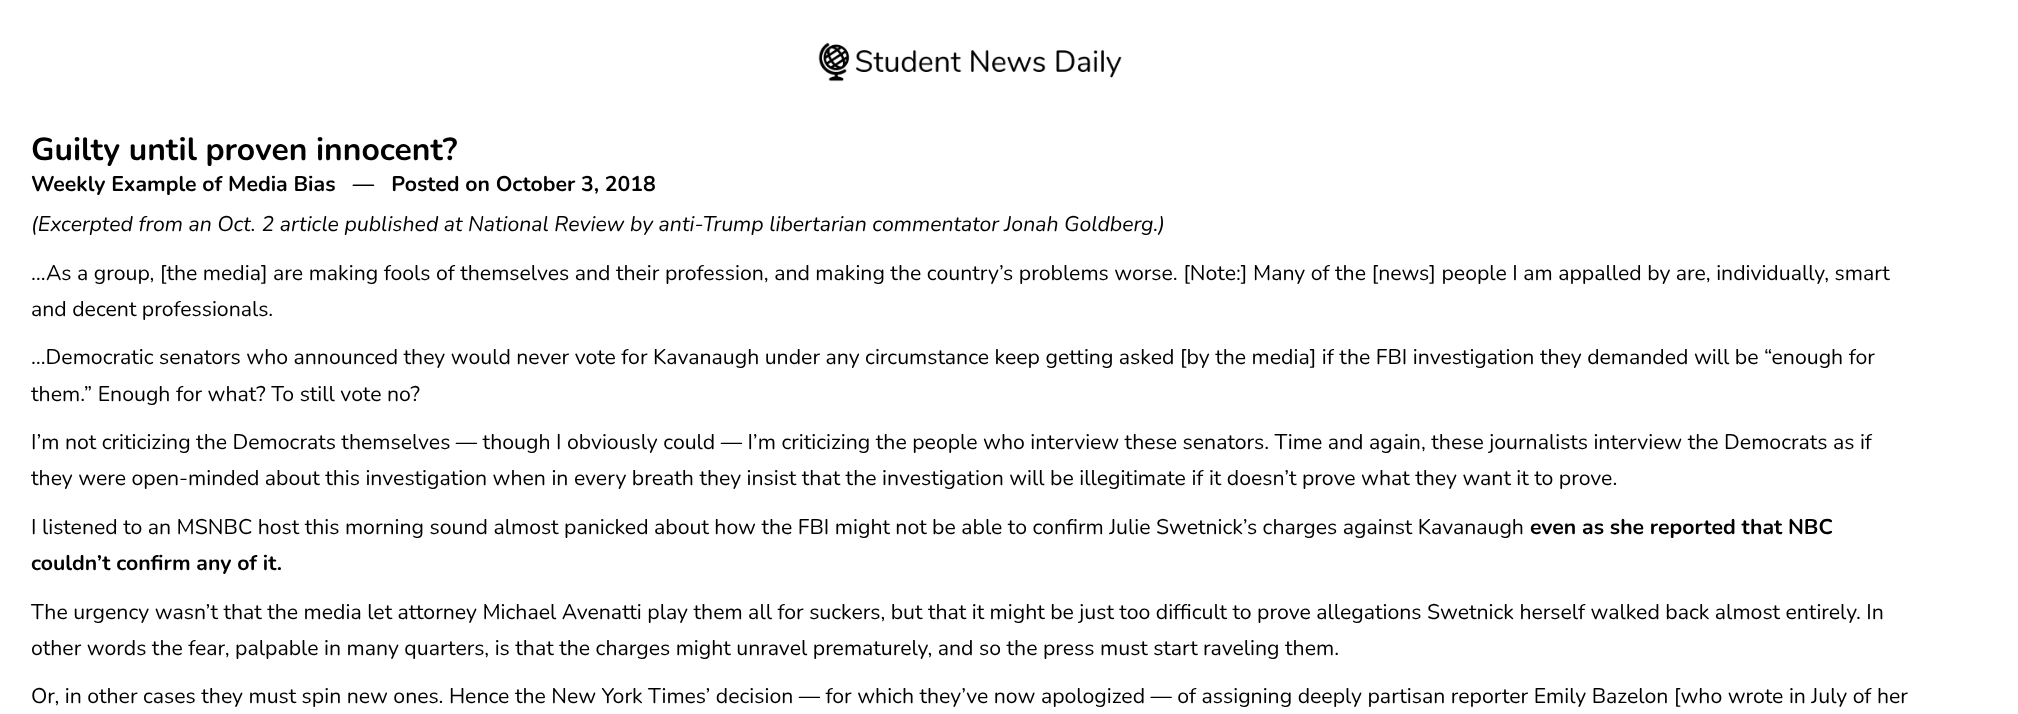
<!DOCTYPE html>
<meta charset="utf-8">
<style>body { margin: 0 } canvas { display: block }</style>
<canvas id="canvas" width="2018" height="714"></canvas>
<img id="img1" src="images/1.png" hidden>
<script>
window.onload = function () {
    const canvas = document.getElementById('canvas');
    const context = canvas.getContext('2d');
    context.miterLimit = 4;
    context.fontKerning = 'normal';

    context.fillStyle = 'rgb(255, 255, 255)';
    context.fillRect(0, 0, 2018, 714);
    context.drawImage(document.getElementById('img1'), 818, 42, 304, 40);
    context.font = 'bold 31.9px Nunito';
    context.fillStyle = 'rgb(0, 0, 0)';
    context.fillText('Guilty until proven innocent?', 31, 160);
    context.font = 'bold 21.25px Nunito';
    context.fillText('Weekly Example of Media Bias   —   Posted on October 3, 2018', 31, 191);
    context.font = 'italic 21.25px Nunito';
    context.fillText('(Excerpted from an Oct. 2 article published at National Review by anti-Trump libertarian commentator Jonah Goldberg.)', 31, 231);
    context.font = '21.25px Nunito';
    context.fillText('…As a group, [the media] are making fools of themselves and their profession, and making the country’s problems worse. [Note:] Many of the [news] people I am appalled by are, individually, smart', 31, 280);
    context.fillText('and decent professionals.', 31, 316);
    context.fillText('…Democratic senators who announced they would never vote for Kavanaugh under any circumstance keep getting asked [by the media] if the FBI investigation they demanded will be “enough for', 31, 364);
    context.fillText('them.” Enough for what? To still vote no?', 31, 401);
    context.fillText('I’m not criticizing the Democrats themselves — though I obviously could — I’m criticizing the people who interview these senators. Time and again, these journalists interview the Democrats as if', 31, 449);
    context.fillText('they were open-minded about this investigation when in every breath they insist that the investigation will be illegitimate if it doesn’t prove what they want it to prove.', 31, 485);
    context.fillText('I listened to an MSNBC host this morning sound almost panicked about how the FBI might not be able to confirm Julie Swetnick’s charges against Kavanaugh', 31, 534);
    context.font = 'bold 21.25px Nunito';
    context.fillText('even as she reported that NBC', 1530, 534);
    context.fillText('couldn’t confirm any of it.', 31, 570);
    context.font = '21.25px Nunito';
    context.fillText('The urgency wasn’t that the media let attorney Michael Avenatti play them all for suckers, but that it might be just too difficult to prove allegations Swetnick herself walked back almost entirely. In', 31, 619);
    context.fillText('other words the fear, palpable in many quarters, is that the charges might unravel prematurely, and so the press must start raveling them.', 31, 655);
    context.fillText('Or, in other cases they must spin new ones. Hence the New York Times’ decision — for which they’ve now apologized — of assigning deeply partisan reporter Emily Bazelon [who wrote in July of her', 31, 703);
};
</script>
